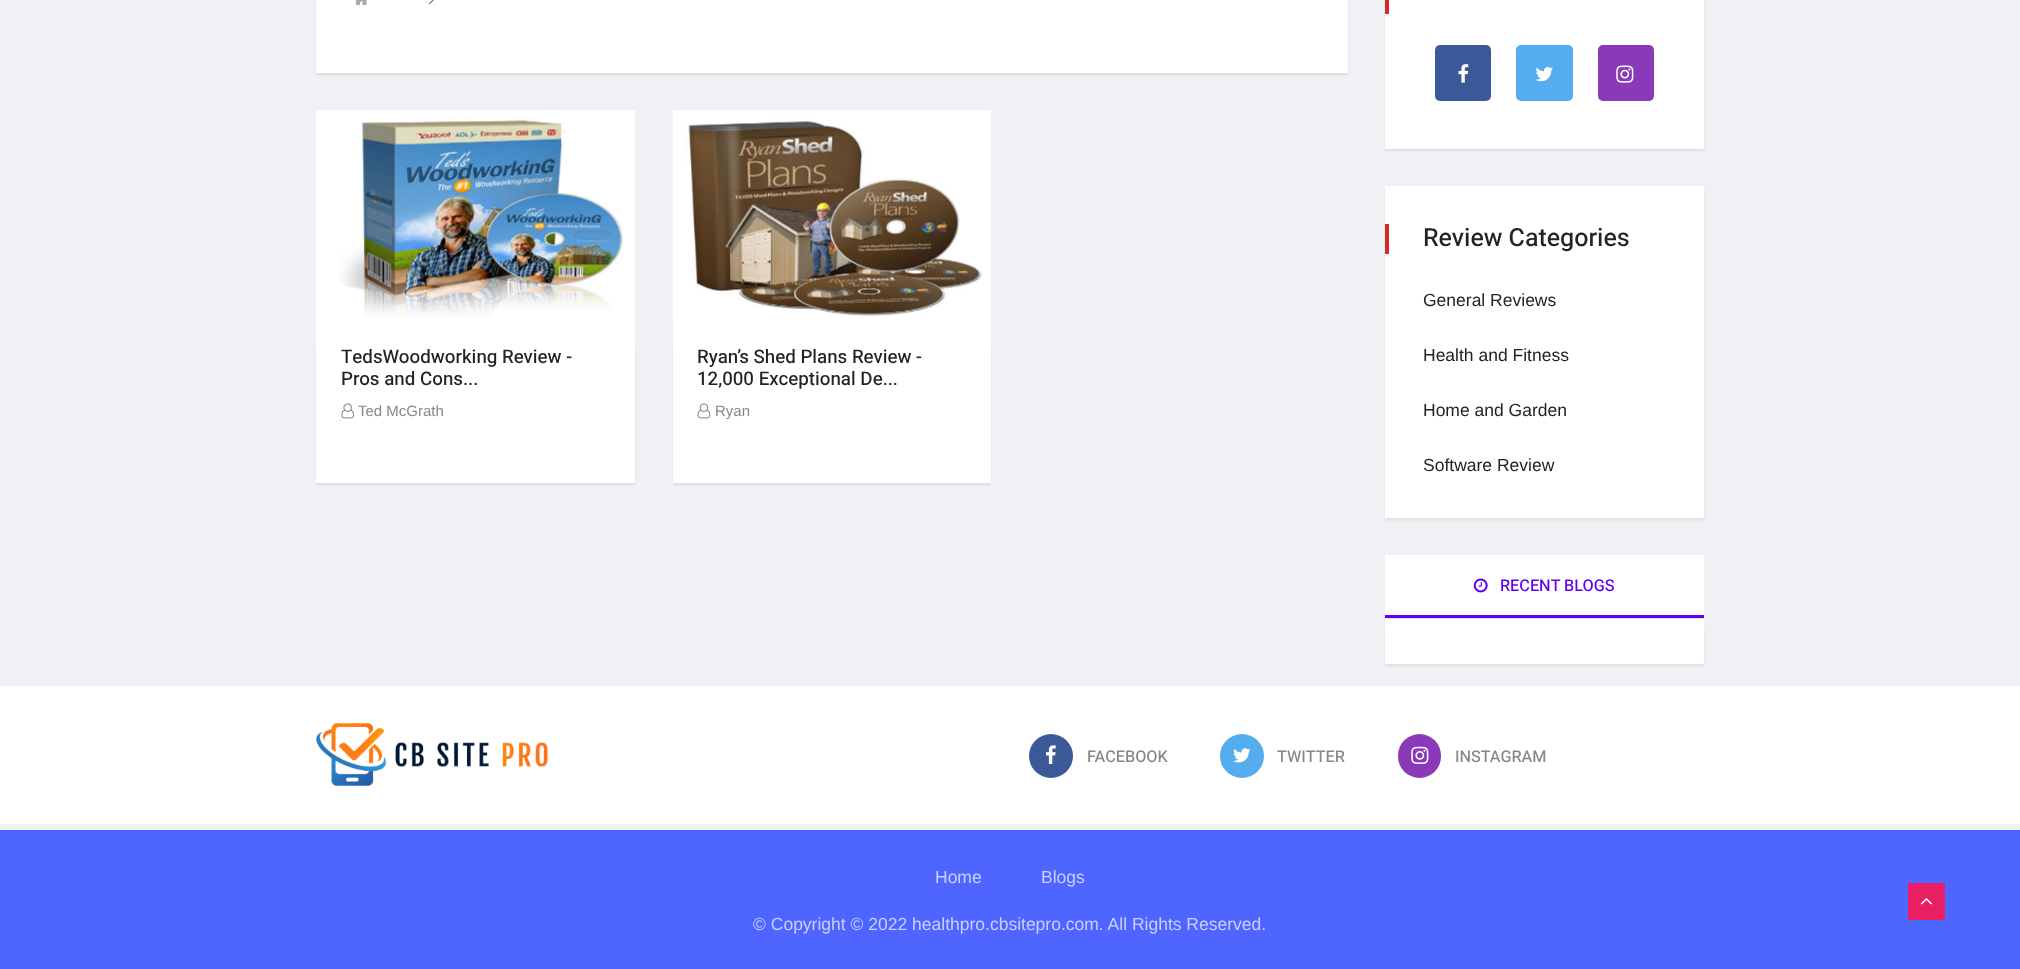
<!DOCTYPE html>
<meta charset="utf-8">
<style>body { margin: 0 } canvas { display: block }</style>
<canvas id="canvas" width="2020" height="969"></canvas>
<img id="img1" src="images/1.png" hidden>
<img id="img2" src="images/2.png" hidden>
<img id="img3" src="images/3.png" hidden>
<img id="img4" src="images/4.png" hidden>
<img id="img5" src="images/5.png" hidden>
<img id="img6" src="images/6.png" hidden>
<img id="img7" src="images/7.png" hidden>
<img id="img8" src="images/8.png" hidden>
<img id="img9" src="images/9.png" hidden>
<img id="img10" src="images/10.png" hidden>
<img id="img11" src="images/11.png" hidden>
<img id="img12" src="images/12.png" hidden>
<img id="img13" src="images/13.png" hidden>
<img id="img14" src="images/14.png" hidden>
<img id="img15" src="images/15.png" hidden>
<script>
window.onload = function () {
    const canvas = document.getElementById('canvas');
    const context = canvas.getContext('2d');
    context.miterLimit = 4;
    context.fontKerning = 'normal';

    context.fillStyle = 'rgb(240, 241, 244)';
    context.fillRect(0, 0, 2020, 969);
    context.fillStyle = 'rgba(0, 0, 0, 0.08)';
    context.filter = 'blur(1px)';
    context.beginPath();
    context.rect(316, -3, 1032, 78);
    context.fill();
    context.filter = 'none';
    context.fillStyle = 'rgb(255, 255, 255)';
    context.fillRect(316, 0, 1032, 73);
    context.drawImage(document.getElementById('img1'), 354, 0, 14, 5);
    context.drawImage(document.getElementById('img2'), 428, 0, 6, 5);
    context.fillRect(316, 110, 319, 373);
    context.drawImage(document.getElementById('img3'), 340, 118, 283, 201);
    context.save();
    context.beginPath();
    context.moveTo(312, 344);
    context.lineTo(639, 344);
    context.lineTo(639, 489);
    context.lineTo(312, 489);
    context.closePath();
    context.moveTo(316, 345);
    context.lineTo(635, 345);
    context.lineTo(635, 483);
    context.lineTo(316, 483);
    context.closePath();
    context.clip('evenodd');
    context.fillStyle = 'rgba(0, 0, 0, 0.08)';
    context.filter = 'blur(1px)';
    context.beginPath();
    context.rect(316, 348, 319, 137);
    context.fill();
    context.filter = 'none';
    context.restore();
    context.drawImage(document.getElementById('img4'), 341, 403, 14, 16);
    context.fillRect(673, 110, 318, 373);
    context.drawImage(document.getElementById('img5'), 672, 110, 312, 210);
    context.save();
    context.beginPath();
    context.moveTo(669, 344);
    context.lineTo(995, 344);
    context.lineTo(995, 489);
    context.lineTo(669, 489);
    context.closePath();
    context.moveTo(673, 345);
    context.lineTo(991, 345);
    context.lineTo(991, 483);
    context.lineTo(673, 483);
    context.closePath();
    context.clip('evenodd');
    context.fillStyle = 'rgba(0, 0, 0, 0.08)';
    context.filter = 'blur(1px)';
    context.beginPath();
    context.rect(673, 348, 318, 137);
    context.fill();
    context.filter = 'none';
    context.restore();
    context.drawImage(document.getElementById('img6'), 697, 403, 14, 16);
    context.fillStyle = 'rgba(0, 0, 0, 0.08)';
    context.filter = 'blur(1px)';
    context.beginPath();
    context.rect(1385, -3, 319, 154);
    context.fill();
    context.filter = 'none';
    context.fillStyle = 'rgb(255, 255, 255)';
    context.fillRect(1385, 0, 319, 149);
    context.fillStyle = 'rgb(215, 41, 36)';
    context.fillRect(1385, 0, 4, 14);
    context.fillStyle = 'rgb(59, 89, 153)';
    context.beginPath();
    context.roundRect(1435, 45, 56, 56, 5);
    context.fill();
    context.drawImage(document.getElementById('img7'), 1458, 64, 11, 19);
    context.fillStyle = 'rgb(85, 172, 238)';
    context.beginPath();
    context.roundRect(1516, 45, 57, 56, 5);
    context.fill();
    context.drawImage(document.getElementById('img8'), 1535, 67, 18, 15);
    context.fillStyle = 'rgb(138, 58, 185)';
    context.beginPath();
    context.roundRect(1598, 45, 56, 56, 5);
    context.fill();
    context.drawImage(document.getElementById('img9'), 1616, 65, 18, 18);
    context.fillStyle = 'rgba(0, 0, 0, 0.08)';
    context.filter = 'blur(1px)';
    context.beginPath();
    context.rect(1385, 189, 319, 331);
    context.fill();
    context.filter = 'none';
    context.fillStyle = 'rgb(255, 255, 255)';
    context.fillRect(1385, 186, 319, 332);
    context.fillStyle = 'rgb(215, 41, 36)';
    context.fillRect(1385, 224, 4, 30);
    context.fillStyle = 'rgb(255, 255, 255)';
    context.fillRect(1385, 555, 319, 71);
    context.fillStyle = 'rgb(221, 221, 221)';
    context.fillRect(1385, 618, 319, 1);
    context.drawImage(document.getElementById('img10'), 1473, 578, 15, 15);
    context.fillStyle = 'rgb(98, 0, 238)';
    context.fillRect(1385, 615, 319, 3);
    context.fillStyle = 'rgba(0, 0, 0, 0.08)';
    context.filter = 'blur(1px)';
    context.beginPath();
    context.rect(1385, 629, 319, 37);
    context.fill();
    context.filter = 'none';
    context.fillStyle = 'rgb(255, 255, 255)';
    context.fillRect(1385, 626, 319, 38);
    context.fillRect(0, 686, 2020, 138);
    context.drawImage(document.getElementById('img11'), 316, 723, 232, 63);
    context.fillStyle = 'rgb(59, 89, 153)';
    context.beginPath();
    context.arc(1051, 756, 22, 0, 2 * Math.PI);
    context.fill();
    context.drawImage(document.getElementById('img12'), 1046, 745, 10, 19);
    context.fillStyle = 'rgb(85, 172, 238)';
    context.beginPath();
    context.arc(1242, 756, 22, 0, 2 * Math.PI);
    context.fill();
    context.drawImage(document.getElementById('img13'), 1233, 748, 18, 15);
    context.fillStyle = 'rgb(138, 58, 185)';
    context.beginPath();
    context.roundRect(1398, 734, 43, 44, 21.5);
    context.fill();
    context.drawImage(document.getElementById('img14'), 1411, 746, 18, 18);
    context.fillStyle = 'rgb(78, 101, 255)';
    context.fillRect(0, 830, 2020, 139);
    context.fillStyle = 'rgb(233, 30, 99)';
    context.fillRect(1908, 883, 37, 37);
    context.drawImage(document.getElementById('img15'), 1920, 898, 12, 7);
    context.font = '500 18.75px Heebo';
    context.fillStyle = 'rgb(35, 35, 35)';
    context.fillText('TedsWoodworking Review -', 341, 363);
    context.fillText('Pros and Cons...', 341, 385);
    context.font = '15px Arimo';
    context.fillStyle = 'rgb(136, 136, 136)';
    context.fillText('Ted McGrath', 358, 416);
    context.font = '500 18.75px Heebo';
    context.fillStyle = 'rgb(35, 35, 35)';
    context.fillText('Ryan’s Shed Plans Review -', 697, 363);
    context.fillText('12,000 Exceptional De...', 697, 385);
    context.font = '15px Arimo';
    context.fillStyle = 'rgb(136, 136, 136)';
    context.fillText('Ryan', 715, 416);
    context.font = '500 25px Heebo';
    context.fillStyle = 'rgb(35, 35, 35)';
    context.fillText('Review Categories', 1423, 246);
    context.font = '17.5px Arimo';
    context.fillText('General Reviews', 1423, 306);
    context.fillText('Health and Fitness', 1423, 361);
    context.fillText('Home and Garden', 1423, 416);
    context.fillText('Software Review', 1423, 471);
    context.font = '500 16.25px Heebo';
    context.fillStyle = 'rgb(98, 0, 238)';
    context.fillText('RECENT BLOGS', 1500, 591);
    context.fillStyle = 'rgb(136, 136, 136)';
    context.fillText('FACEBOOK', 1087, 762);
    context.fillText('TWITTER', 1277, 762);
    context.fillText('INSTAGRAM', 1455, 762);
    context.font = '17.5px Arimo';
    context.fillStyle = 'rgb(202, 208, 255)';
    context.fillText('Home', 935, 883);
    context.fillText('Blogs', 1041, 883);
    context.font = '17.5px Liberation Sans';
    context.fillText('© Copyright © 2022 healthpro.cbsitepro.com. All Rights Reserved.', 753, 930);
};
</script>
